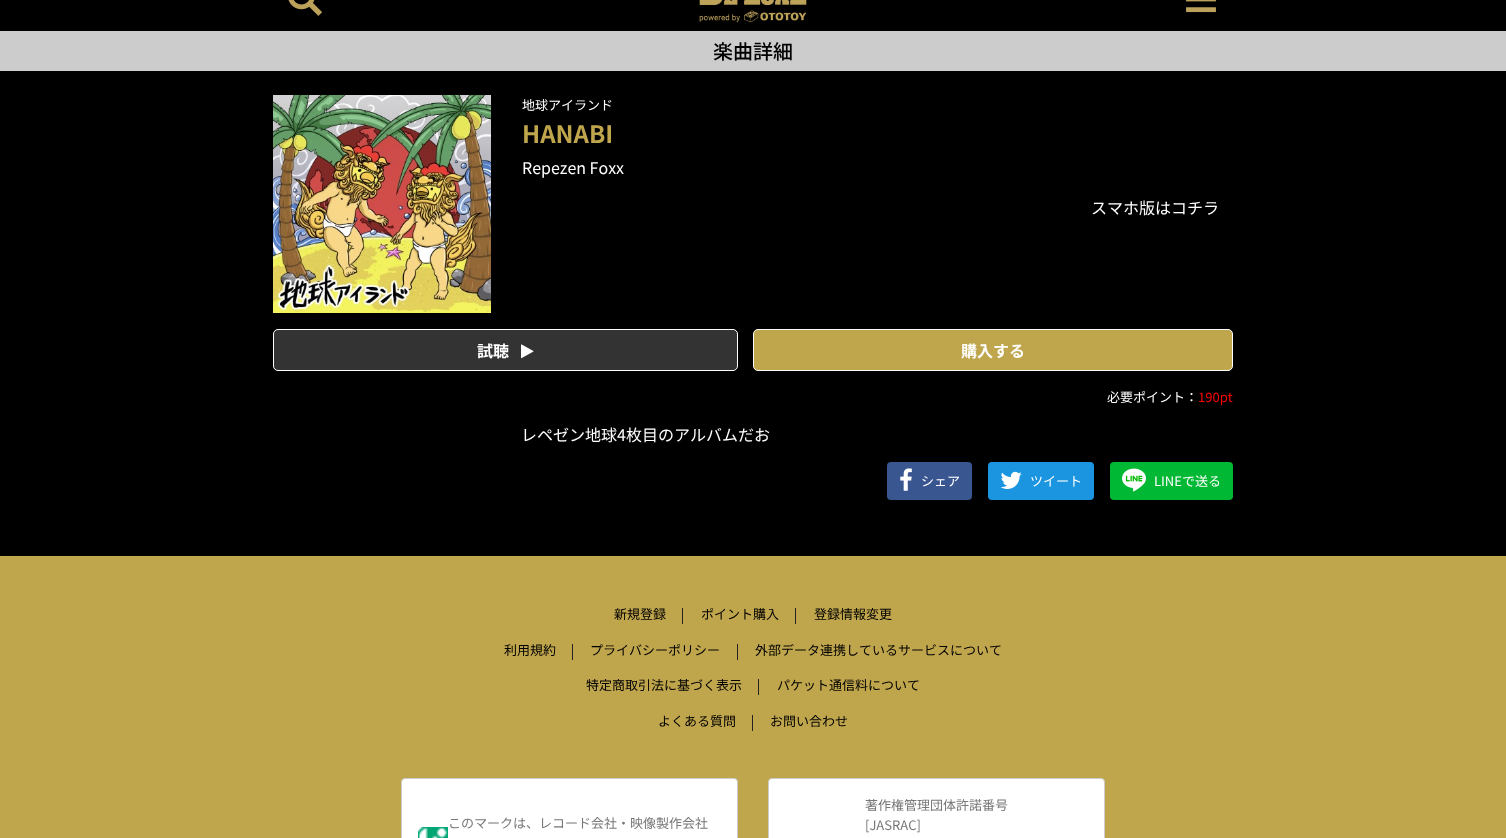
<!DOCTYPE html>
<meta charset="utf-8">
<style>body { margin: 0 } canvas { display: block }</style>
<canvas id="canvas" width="1506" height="838"></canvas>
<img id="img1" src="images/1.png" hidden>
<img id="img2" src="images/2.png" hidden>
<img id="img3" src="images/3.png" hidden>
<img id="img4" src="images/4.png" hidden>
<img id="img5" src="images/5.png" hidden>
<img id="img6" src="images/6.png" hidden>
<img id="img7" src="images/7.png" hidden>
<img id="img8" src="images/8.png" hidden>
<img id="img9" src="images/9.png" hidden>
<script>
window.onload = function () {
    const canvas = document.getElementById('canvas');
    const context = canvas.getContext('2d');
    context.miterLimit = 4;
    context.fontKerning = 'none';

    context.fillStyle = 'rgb(0, 0, 0)';
    context.fillRect(0, 0, 1506, 838);
    context.drawImage(document.getElementById('img1'), 288, 0, 35, 16);
    context.drawImage(document.getElementById('img2'), 699, 0, 108, 23);
    context.drawImage(document.getElementById('img3'), 1186, 0, 30, 13);
    context.fillStyle = 'rgb(204, 204, 204)';
    context.fillRect(0, 31, 1506, 40);
    context.drawImage(document.getElementById('img4'), 273, 95, 218, 218);
    context.fillStyle = 'rgb(51, 51, 51)';
    context.beginPath();
    context.roundRect(273.5, 329.5, 464, 41, 4.5);
    context.fill();
    context.strokeStyle = 'rgb(255, 255, 255)';
    context.stroke();
    context.drawImage(document.getElementById('img5'), 521, 344, 13, 15);
    context.fillStyle = 'rgb(191, 165, 76)';
    context.beginPath();
    context.roundRect(753.5, 329.5, 479, 41, 4.5);
    context.fill();
    context.stroke();
    context.fillStyle = 'rgb(57, 86, 145)';
    context.beginPath();
    context.roundRect(887, 462, 85, 38, 4);
    context.fill();
    context.drawImage(document.getElementById('img6'), 900, 468, 12, 23);
    context.fillStyle = 'rgb(27, 149, 224)';
    context.beginPath();
    context.roundRect(988, 462, 106, 38, 4);
    context.fill();
    context.drawImage(document.getElementById('img7'), 1000, 471, 22, 18);
    context.fillStyle = 'rgb(0, 184, 51)';
    context.beginPath();
    context.roundRect(1110, 462, 123, 38, 4);
    context.fill();
    context.drawImage(document.getElementById('img8'), 1122, 468, 24, 24);
    context.fillStyle = 'rgb(191, 165, 76)';
    context.fillRect(0, 556, 1506, 282);
    context.fillStyle = 'rgb(34, 34, 34)';
    context.fillRect(682, 608, 1, 16);
    context.fillRect(795, 608, 1, 16);
    context.fillRect(572, 644, 1, 16);
    context.fillRect(737, 644, 1, 16);
    context.fillRect(758, 679, 1, 16);
    context.fillRect(752, 715, 1, 16);
    context.fillStyle = 'rgb(255, 255, 255)';
    context.beginPath();
    context.roundRect(401.5, 778.5, 336, 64, 3.5);
    context.fill();
    context.strokeStyle = 'rgb(204, 204, 204)';
    context.stroke();
    context.drawImage(document.getElementById('img9'), 418, 827, 30, 11);
    context.beginPath();
    context.roundRect(768.5, 778.5, 336, 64, 3.5);
    context.fill();
    context.stroke();
    context.font = '500 20px Noto Sans JP';
    context.fillStyle = 'rgb(0, 0, 0)';
    context.fillText('楽曲詳細', 713, 59);
    context.font = '13px Noto Sans JP';
    context.fillStyle = 'rgb(255, 255, 255)';
    context.fillText('地球アイランド', 522, 110);
    context.font = 'bold 24px Noto Sans JP';
    context.fillStyle = 'rgb(191, 165, 76)';
    context.fillText('HANABI', 522, 143);
    context.font = '16px Noto Sans JP';
    context.fillStyle = 'rgb(255, 255, 255)';
    context.fillText('Repezen Foxx', 522, 174);
    context.fillText('スマホ版はコチラ', 1091, 214);
    context.font = 'bold 16px Noto Sans JP';
    context.fillText('試聴', 477, 357);
    context.fillText('購入する', 961, 357);
    context.font = '13px Noto Sans JP';
    context.fillText('必要ポイント：', 1107, 402);
    context.fillStyle = 'rgb(255, 0, 0)';
    context.fillText('190pt', 1198, 402);
    context.font = '16px Noto Sans JP';
    context.fillStyle = 'rgb(255, 255, 255)';
    context.fillText('レペゼン地球4枚目のアルバムだお', 521, 441);
    context.font = '13px Noto Sans JP';
    context.fillText('シェア', 921, 486);
    context.fillText('ツイート', 1030, 486);
    context.fillText('LINEで送る', 1154, 486);
    context.fillStyle = 'rgb(0, 0, 0)';
    context.fillText('新規登録', 614, 619);
    context.fillText('ポイント購入', 701, 619);
    context.fillText('登録情報変更', 814, 619);
    context.fillText('利用規約', 504, 655);
    context.fillText('プライバシーポリシー', 590, 655);
    context.fillText('外部データ連携しているサービスについて', 755, 655);
    context.fillText('特定商取引法に基づく表示', 586, 690);
    context.fillText('パケット通信料について', 777, 690);
    context.fillText('よくある質問', 658, 726);
    context.fillText('お問い合わせ', 770, 726);
    context.fillStyle = 'rgb(119, 119, 119)';
    context.fillText('このマークは、レコード会社・映像製作会社', 448, 828);
    context.fillText('著作権管理団体許諾番号', 865, 810);
    context.fillText('[JASRAC]', 865, 830);
};
</script>
